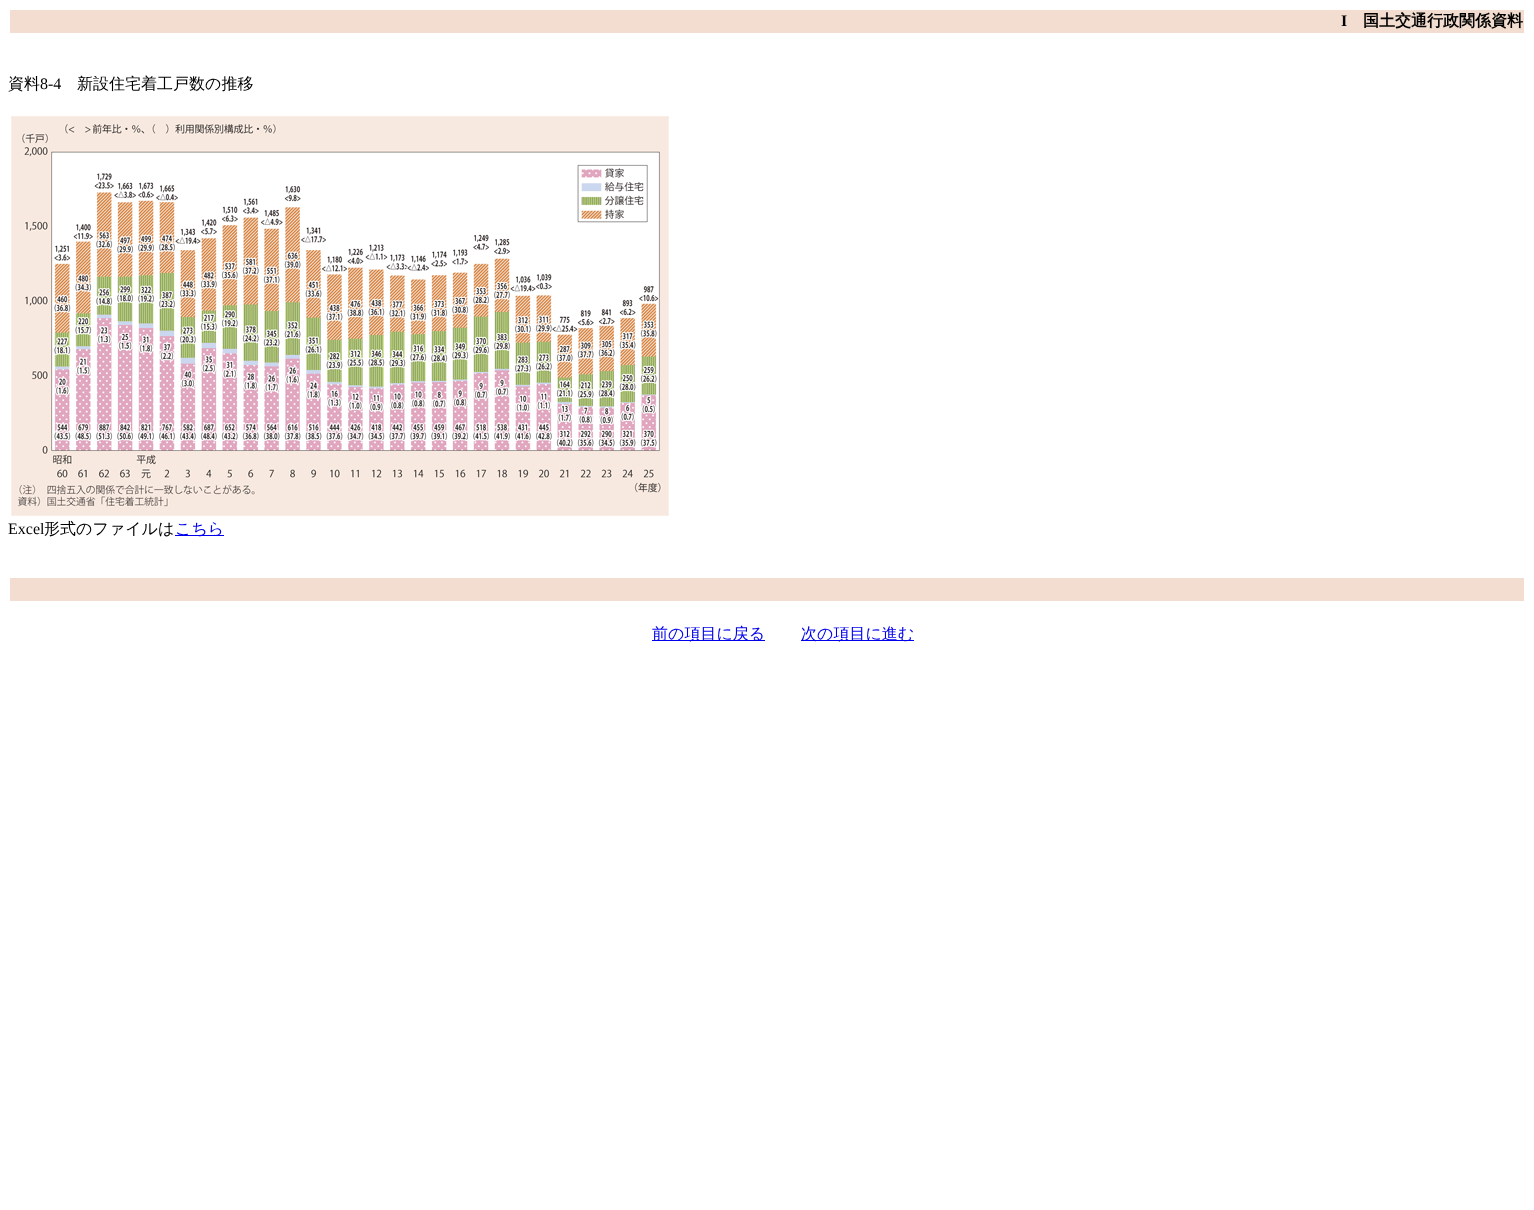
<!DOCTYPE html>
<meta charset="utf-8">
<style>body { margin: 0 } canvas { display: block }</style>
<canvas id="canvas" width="1534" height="1210"></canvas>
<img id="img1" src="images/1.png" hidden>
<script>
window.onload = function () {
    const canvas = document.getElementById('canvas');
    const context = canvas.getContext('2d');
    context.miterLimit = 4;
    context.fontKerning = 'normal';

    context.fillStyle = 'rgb(255, 255, 255)';
    context.fillRect(0, 0, 1534, 1210);
    context.fillStyle = 'rgb(243, 221, 208)';
    context.fillRect(10, 10, 1514, 23);
    context.drawImage(document.getElementById('img1'), 11, 116, 658, 400);
    context.fillStyle = 'rgb(0, 0, 238)';
    context.fillRect(175, 535, 49, 1);
    context.fillStyle = 'rgb(243, 221, 208)';
    context.fillRect(10, 578, 1514, 23);
    context.fillStyle = 'rgb(0, 0, 238)';
    context.fillRect(652, 640, 113, 1);
    context.fillRect(801, 640, 113, 1);
    context.font = 'bold 16px Liberation Serif';
    context.fillStyle = 'rgb(0, 0, 0)';
    context.fillText('I', 1341, 26);
    context.font = 'bold 16px WenQuanYi Zen Hei';
    context.fillText('国土交通行政関係資料', 1363, 26);
    context.font = '500 16px WenQuanYi Zen Hei';
    context.fillText('資料', 8, 89);
    context.font = '16px Liberation Serif';
    context.fillText('8-4', 40, 89);
    context.font = '500 16px WenQuanYi Zen Hei';
    context.fillText('新設住宅着工戸数の推移', 77, 89);
    context.font = '16px Liberation Serif';
    context.fillText('Excel', 8, 534);
    context.font = '500 16px WenQuanYi Zen Hei';
    context.fillText('形式のファイルは', 44, 534);
    context.fillStyle = 'rgb(0, 0, 238)';
    context.fillText('こちら', 175, 534);
    context.fillText('前の項目に戻る', 652, 639);
    context.fillText('次の項目に進む', 801, 639);
};
</script>
